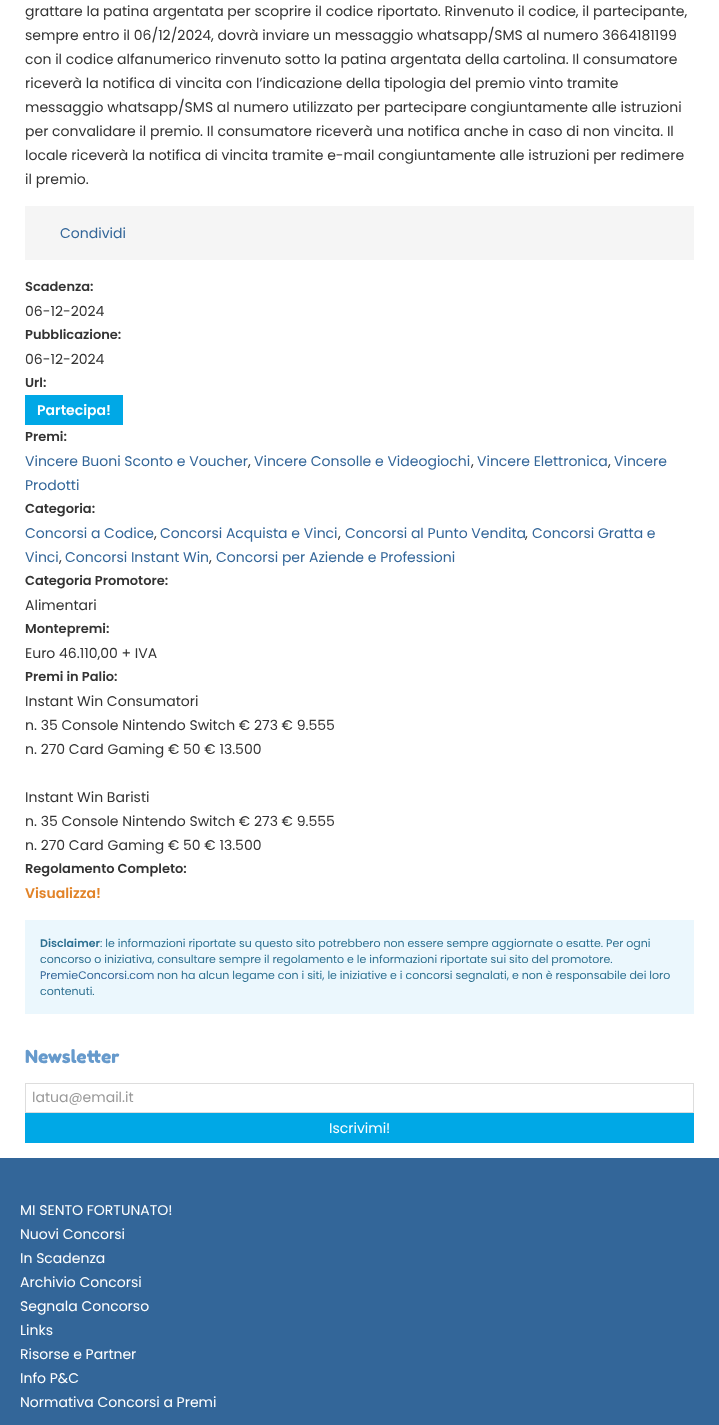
<!DOCTYPE html>
<meta charset="utf-8">
<style>body { margin: 0 } canvas { display: block }</style>
<canvas id="canvas" width="719" height="1425"></canvas>
<script>
window.onload = function () {
    const canvas = document.getElementById('canvas');
    const context = canvas.getContext('2d');
    context.miterLimit = 4;
    context.fontKerning = 'normal';

    context.fillStyle = 'rgb(255, 255, 255)';
    context.fillRect(0, 0, 719, 1425);
    context.fillStyle = 'rgb(245, 245, 245)';
    context.fillRect(25, 206, 669, 54);
    context.fillStyle = 'rgb(0, 168, 230)';
    context.fillRect(25, 395, 98, 30);
    context.fillStyle = 'rgb(235, 247, 253)';
    context.fillRect(25, 920, 669, 94);
    context.strokeStyle = 'rgb(221, 221, 221)';
    context.strokeRect(25.5, 1083.5, 668, 29);
    context.fillStyle = 'rgb(0, 168, 230)';
    context.fillRect(25, 1113, 669, 30);
    context.fillStyle = 'rgb(51, 102, 153)';
    context.fillRect(0, 1158, 719, 267);
    context.font = '14px Poppins';
    context.fillStyle = 'rgb(51, 51, 51)';
    context.fillText('grattare la patina argentata per scoprire il codice riportato. Rinvenuto il codice, il partecipante,', 25, 16);
    context.fillText('sempre entro il 06/12/2024, dovrà inviare un messaggio whatsapp/SMS al numero 3664181199', 25, 40);
    context.fillText('con il codice alfanumerico rinvenuto sotto la patina argentata della cartolina. Il consumatore', 25, 64);
    context.fillText('riceverà la notifica di vincita con l’indicazione della tipologia del premio vinto tramite', 25, 88);
    context.fillText('messaggio whatsapp/SMS al numero utilizzato per partecipare congiuntamente alle istruzioni', 25, 112);
    context.fillText('per convalidare il premio. Il consumatore riceverà una notifica anche in caso di non vincita. Il', 25, 136);
    context.fillText('locale riceverà la notifica di vincita tramite e-mail congiuntamente alle istruzioni per redimere', 25, 160);
    context.fillText('il premio.', 25, 184);
    context.fillStyle = 'rgb(51, 102, 153)';
    context.fillText('Condividi', 60, 238);
    context.font = '600 13px Poppins';
    context.fillStyle = 'rgb(51, 51, 51)';
    context.fillText('Scadenza:', 25, 291);
    context.font = '14px Poppins';
    context.fillText('06-12-2024', 25, 316);
    context.font = '600 13px Poppins';
    context.fillText('Pubblicazione:', 25, 339);
    context.font = '14px Poppins';
    context.fillText('06-12-2024', 25, 364);
    context.font = '600 13px Poppins';
    context.fillText('Url:', 25, 387);
    context.font = '600 14px Poppins';
    context.fillStyle = 'rgb(255, 255, 255)';
    context.fillText('Partecipa!', 37, 415);
    context.font = '600 13px Poppins';
    context.fillStyle = 'rgb(51, 51, 51)';
    context.fillText('Premi:', 25, 441);
    context.font = '14px Poppins';
    context.fillStyle = 'rgb(51, 102, 153)';
    context.fillText('Vincere Buoni Sconto e Voucher', 25, 466);
    context.fillStyle = 'rgb(51, 51, 51)';
    context.fillText(',', 248, 466);
    context.fillStyle = 'rgb(51, 102, 153)';
    context.fillText('Vincere Consolle e Videogiochi', 254, 466);
    context.fillStyle = 'rgb(51, 51, 51)';
    context.fillText(',', 471, 466);
    context.fillStyle = 'rgb(51, 102, 153)';
    context.fillText('Vincere Elettronica', 477, 466);
    context.fillStyle = 'rgb(51, 51, 51)';
    context.fillText(',', 608, 466);
    context.fillStyle = 'rgb(51, 102, 153)';
    context.fillText('Vincere', 614, 466);
    context.fillText('Prodotti', 25, 490);
    context.font = '600 13px Poppins';
    context.fillStyle = 'rgb(51, 51, 51)';
    context.fillText('Categoria:', 25, 513);
    context.font = '14px Poppins';
    context.fillStyle = 'rgb(51, 102, 153)';
    context.fillText('Concorsi a Codice', 25, 538);
    context.fillStyle = 'rgb(51, 51, 51)';
    context.fillText(',', 154, 538);
    context.fillStyle = 'rgb(51, 102, 153)';
    context.fillText('Concorsi Acquista e Vinci', 160, 538);
    context.fillStyle = 'rgb(51, 51, 51)';
    context.fillText(',', 338, 538);
    context.fillStyle = 'rgb(51, 102, 153)';
    context.fillText('Concorsi al Punto Vendita', 345, 538);
    context.fillStyle = 'rgb(51, 51, 51)';
    context.fillText(',', 525, 538);
    context.fillStyle = 'rgb(51, 102, 153)';
    context.fillText('Concorsi Gratta e', 532, 538);
    context.fillText('Vinci', 25, 562);
    context.fillStyle = 'rgb(51, 51, 51)';
    context.fillText(',', 59, 562);
    context.fillStyle = 'rgb(51, 102, 153)';
    context.fillText('Concorsi Instant Win', 65, 562);
    context.fillStyle = 'rgb(51, 51, 51)';
    context.fillText(',', 209, 562);
    context.fillStyle = 'rgb(51, 102, 153)';
    context.fillText('Concorsi per Aziende e Professioni', 216, 562);
    context.font = '600 13px Poppins';
    context.fillStyle = 'rgb(51, 51, 51)';
    context.fillText('Categoria Promotore:', 25, 585);
    context.font = '14px Poppins';
    context.fillText('Alimentari', 25, 610);
    context.font = '600 13px Poppins';
    context.fillText('Montepremi:', 25, 633);
    context.font = '14px Poppins';
    context.fillText('Euro 46.110,00 + IVA', 25, 658);
    context.font = '600 13px Poppins';
    context.fillText('Premi in Palio:', 25, 681);
    context.font = '14px Poppins';
    context.fillText('Instant Win Consumatori', 25, 706);
    context.fillText('n. 35 Console Nintendo Switch € 273 € 9.555', 25, 730);
    context.fillText('n. 270 Card Gaming € 50 € 13.500', 25, 754);
    context.fillText('Instant Win Baristi', 25, 802);
    context.fillText('n. 35 Console Nintendo Switch € 273 € 9.555', 25, 826);
    context.fillText('n. 270 Card Gaming € 50 € 13.500', 25, 850);
    context.font = '600 13px Poppins';
    context.fillText('Regolamento Completo:', 25, 873);
    context.font = '600 14px Poppins';
    context.fillStyle = 'rgb(226, 131, 39)';
    context.fillText('Visualizza!', 25, 898);
    context.font = '600 11px Poppins';
    context.fillStyle = 'rgb(45, 112, 145)';
    context.fillText('Disclaimer', 40, 947);
    context.font = '11px Poppins';
    context.fillText(': le informazioni riportate su questo sito potrebbero non essere sempre aggiornate o esatte. Per ogni', 100, 947);
    context.fillText('concorso o iniziativa, consultare sempre il regolamento e le informazioni riportate sui sito del promotore.', 40, 963);
    context.fillStyle = 'rgb(51, 102, 153)';
    context.fillText('PremieConcorsi.com', 40, 979);
    context.fillStyle = 'rgb(45, 112, 145)';
    context.fillText('non ha alcun legame con i siti, le iniziative e i concorsi segnalati, e non è responsabile dei loro', 157, 979);
    context.fillText('contenuti.', 40, 995);
    context.font = '18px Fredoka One';
    context.fillStyle = 'rgb(102, 154, 204)';
    context.fillText('Newsletter', 25, 1063);
    context.font = '14px Poppins';
    context.fillStyle = 'rgb(153, 153, 153)';
    context.fillText('latua@email.it', 32, 1102);
    context.fillStyle = 'rgb(255, 255, 255)';
    context.fillText('Iscrivimi!', 329, 1133);
    context.fillText('MI SENTO FORTUNATO!', 20, 1215);
    context.fillText('Nuovi Concorsi', 20, 1239);
    context.fillText('In Scadenza', 20, 1263);
    context.fillText('Archivio Concorsi', 20, 1287);
    context.fillText('Segnala Concorso', 20, 1311);
    context.fillText('Links', 20, 1335);
    context.fillText('Risorse e Partner', 20, 1359);
    context.fillText('Info P&C', 20, 1383);
    context.fillText('Normativa Concorsi a Premi', 20, 1407);
};
</script>
